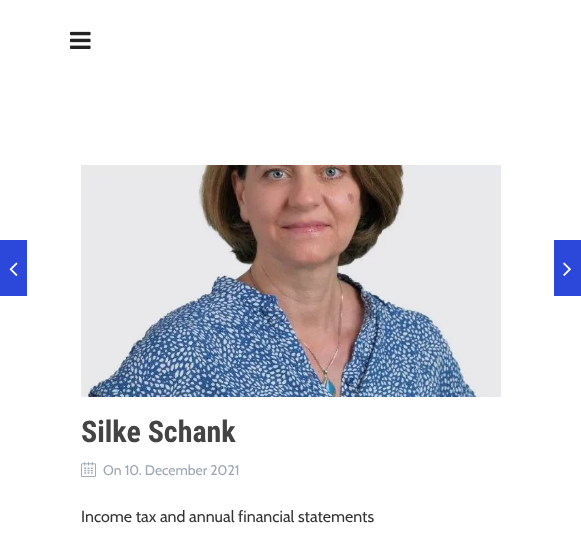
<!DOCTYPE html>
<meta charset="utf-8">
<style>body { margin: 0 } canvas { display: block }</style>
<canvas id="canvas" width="581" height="536"></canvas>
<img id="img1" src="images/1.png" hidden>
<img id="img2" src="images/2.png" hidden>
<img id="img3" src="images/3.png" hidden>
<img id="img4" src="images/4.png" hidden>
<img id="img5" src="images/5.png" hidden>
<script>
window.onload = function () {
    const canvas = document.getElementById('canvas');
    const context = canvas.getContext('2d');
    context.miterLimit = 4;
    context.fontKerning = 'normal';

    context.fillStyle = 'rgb(255, 255, 255)';
    context.fillRect(0, 0, 581, 536);
    context.drawImage(document.getElementById('img1'), 70, 31, 21, 18);
    context.fillStyle = 'rgb(43, 72, 218)';
    context.fillRect(0, 240, 27, 56);
    context.drawImage(document.getElementById('img2'), 9, 262, 9, 14);
    context.fillRect(554, 240, 27, 56);
    context.drawImage(document.getElementById('img3'), 563, 262, 8, 14);
    context.drawImage(document.getElementById('img4'), 81, 165, 420, 232);
    context.drawImage(document.getElementById('img5'), 81, 462, 15, 15);
    context.font = 'bold 30px Roboto Condensed';
    context.fillStyle = 'rgb(68, 68, 68)';
    context.fillText('Silke Schank', 81, 442);
    context.font = '14px Cabin';
    context.fillStyle = 'rgb(158, 167, 179)';
    context.fillText('On 10. December 2021', 103, 475);
    context.font = '16px Cabin';
    context.fillStyle = 'rgb(51, 51, 51)';
    context.fillText('Income tax and annual financial statements', 81, 522);
};
</script>
